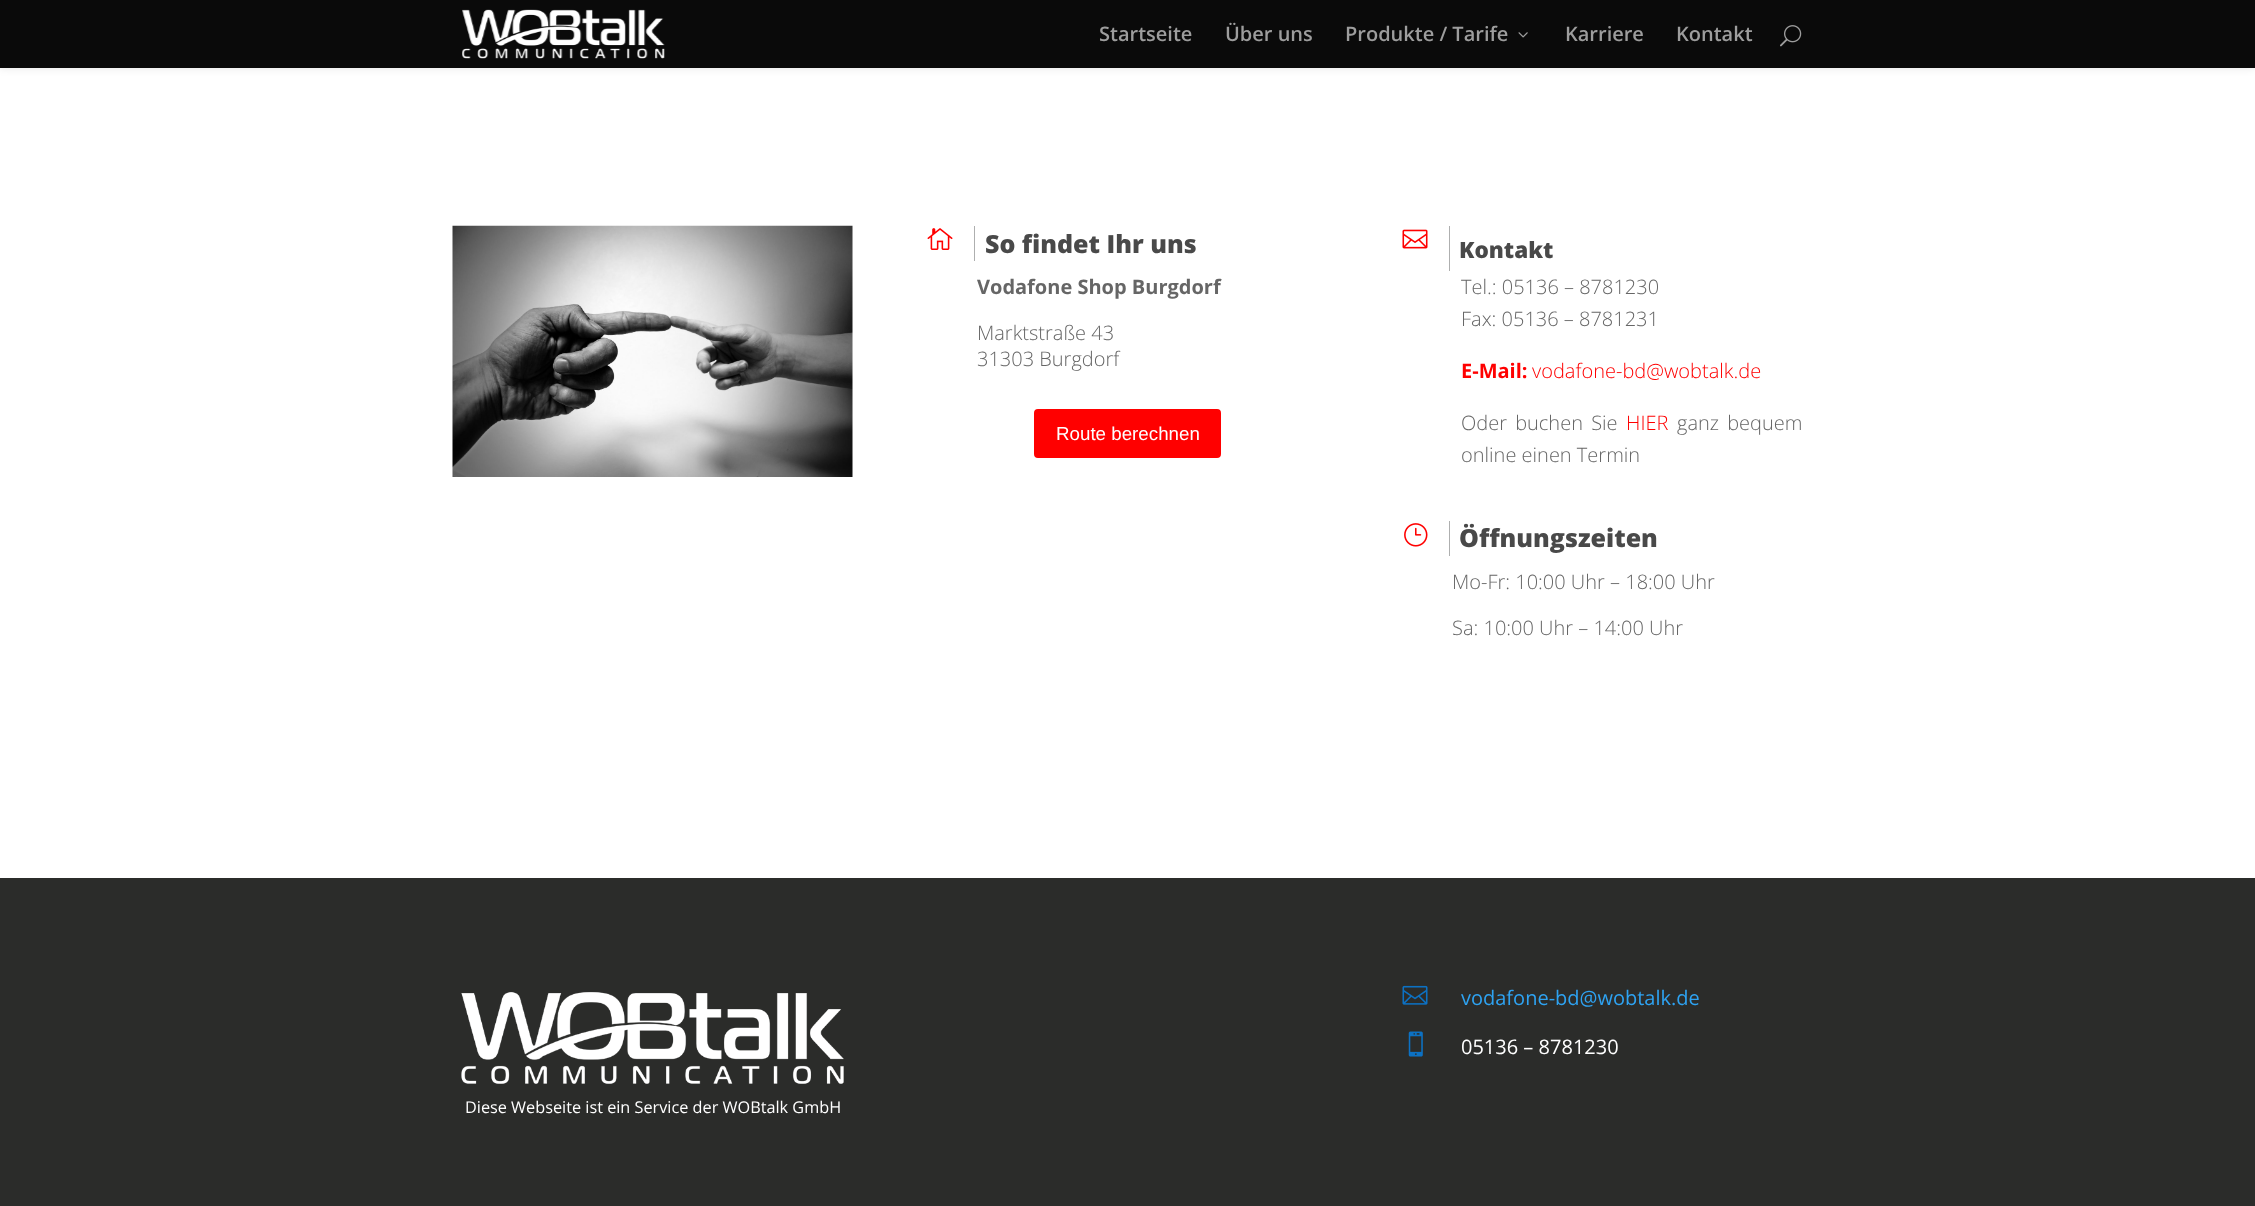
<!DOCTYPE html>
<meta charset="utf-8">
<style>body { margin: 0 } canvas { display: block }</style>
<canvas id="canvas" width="2255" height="1206"></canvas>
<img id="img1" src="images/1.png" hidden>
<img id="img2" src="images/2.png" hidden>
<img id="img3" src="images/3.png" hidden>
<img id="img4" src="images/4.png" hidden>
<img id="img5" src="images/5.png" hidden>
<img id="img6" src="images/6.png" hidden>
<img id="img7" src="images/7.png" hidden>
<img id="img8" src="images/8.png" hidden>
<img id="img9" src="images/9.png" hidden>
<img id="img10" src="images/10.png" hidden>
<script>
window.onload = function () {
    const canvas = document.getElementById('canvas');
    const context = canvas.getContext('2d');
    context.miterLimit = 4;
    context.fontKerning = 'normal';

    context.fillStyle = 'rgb(255, 255, 255)';
    context.fillRect(0, 0, 2255, 1206);
    context.fillStyle = 'rgba(0, 0, 0, 0.1)';
    context.filter = 'blur(4.5px)';
    context.beginPath();
    context.rect(0, 0, 2255, 68);
    context.fill();
    context.filter = 'none';
    context.fillStyle = 'rgb(10, 10, 10)';
    context.fillRect(0, 0, 2255, 68);
    context.drawImage(document.getElementById('img1'), 462, 9, 203, 50);
    context.drawImage(document.getElementById('img2'), 1518, 32, 10, 6);
    context.drawImage(document.getElementById('img3'), 1780, 25, 22, 22);
    context.drawImage(document.getElementById('img4'), 452, 225, 401, 252);
    context.drawImage(document.getElementById('img5'), 927, 228, 26, 22);
    context.fillStyle = 'rgb(174, 175, 175)';
    context.fillRect(974, 226, 1, 35);
    context.fillStyle = 'rgb(255, 0, 0)';
    context.beginPath();
    context.roundRect(1035.5, 410.5, 184, 46, 2.5);
    context.fill();
    context.strokeStyle = 'rgb(255, 0, 0)';
    context.lineWidth = 3;
    context.stroke();
    context.drawImage(document.getElementById('img6'), 1402, 229, 26, 20);
    context.fillStyle = 'rgb(174, 175, 175)';
    context.fillRect(1449, 226, 1, 45);
    context.drawImage(document.getElementById('img7'), 1404, 523, 24, 24);
    context.fillRect(1449, 521, 1, 35);
    context.fillStyle = 'rgb(43, 44, 42)';
    context.fillRect(0, 878, 2255, 328);
    context.drawImage(document.getElementById('img8'), 1402, 985, 26, 20);
    context.drawImage(document.getElementById('img9'), 1408, 1031, 15, 26);
    context.drawImage(document.getElementById('img10'), 461, 992, 383, 92);
    context.font = '600 20px Open Sans';
    context.fillStyle = 'rgb(157, 157, 157)';
    context.fillText('Startseite', 1099, 41);
    context.fillText('Über uns', 1225, 41);
    context.fillText('Produkte / Tarife', 1345, 41);
    context.fillText('Karriere', 1565, 41);
    context.fillText('Kontakt', 1676, 41);
    context.font = '800 25px Open Sans';
    context.fillStyle = 'rgb(73, 73, 73)';
    context.fillText('So findet Ihr uns', 985, 253);
    context.font = 'bold 20px Open Sans';
    context.fillStyle = 'rgb(102, 102, 102)';
    context.fillText('Vodafone Shop Burgdorf', 977, 294);
    context.font = '300 20px Open Sans';
    context.fillText('Marktstraße 43', 977, 340);
    context.fillText('31303 Burgdorf', 977, 366);
    context.font = '18.75px Liberation Sans';
    context.fillStyle = 'rgb(255, 255, 255)';
    context.fillText('Route berechnen', 1056, 440);
    context.font = '800 22.5px Open Sans';
    context.fillStyle = 'rgb(73, 73, 73)';
    context.fillText('Kontakt', 1459, 258);
    context.font = '300 20px Open Sans';
    context.fillStyle = 'rgb(102, 102, 102)';
    context.fillText('Tel.: 05136 – 8781230', 1461, 294);
    context.fillText('Fax: 05136 – 8781231', 1461, 326);
    context.font = 'bold 20px Open Sans';
    context.fillStyle = 'rgb(255, 0, 0)';
    context.fillText('E-Mail:', 1461, 378);
    context.font = '300 20px Open Sans';
    context.fillText('vodafone-bd@wobtalk.de', 1532, 378);
    context.wordSpacing = '3px';
    context.fillStyle = 'rgb(102, 102, 102)';
    context.fillText('Oder buchen Sie', 1461, 430);
    context.wordSpacing = '0px';
    context.fillStyle = 'rgb(255, 0, 0)';
    context.fillText('HIER', 1626, 430);
    context.wordSpacing = '3px';
    context.fillStyle = 'rgb(102, 102, 102)';
    context.fillText('ganz bequem', 1677, 430);
    context.wordSpacing = '0px';
    context.fillText('online einen Termin', 1461, 462);
    context.font = '800 25px Open Sans';
    context.fillStyle = 'rgb(73, 73, 73)';
    context.fillText('Öffnungszeiten', 1459, 547);
    context.font = '300 20px Open Sans';
    context.fillStyle = 'rgb(102, 102, 102)';
    context.fillText('Mo-Fr: 10:00 Uhr – 18:00 Uhr', 1452, 589);
    context.fillText('Sa: 10:00 Uhr – 14:00 Uhr', 1452, 635);
    context.font = '20px Open Sans';
    context.fillStyle = 'rgb(46, 163, 242)';
    context.fillText('vodafone-bd@wobtalk.de', 1461, 1005);
    context.fillStyle = 'rgb(255, 255, 255)';
    context.fillText('05136 – 8781230', 1461, 1054);
    context.font = '16.25px Open Sans';
    context.fillText('Diese Webseite ist ein Service der WOBtalk GmbH', 465, 1113);
};
</script>
